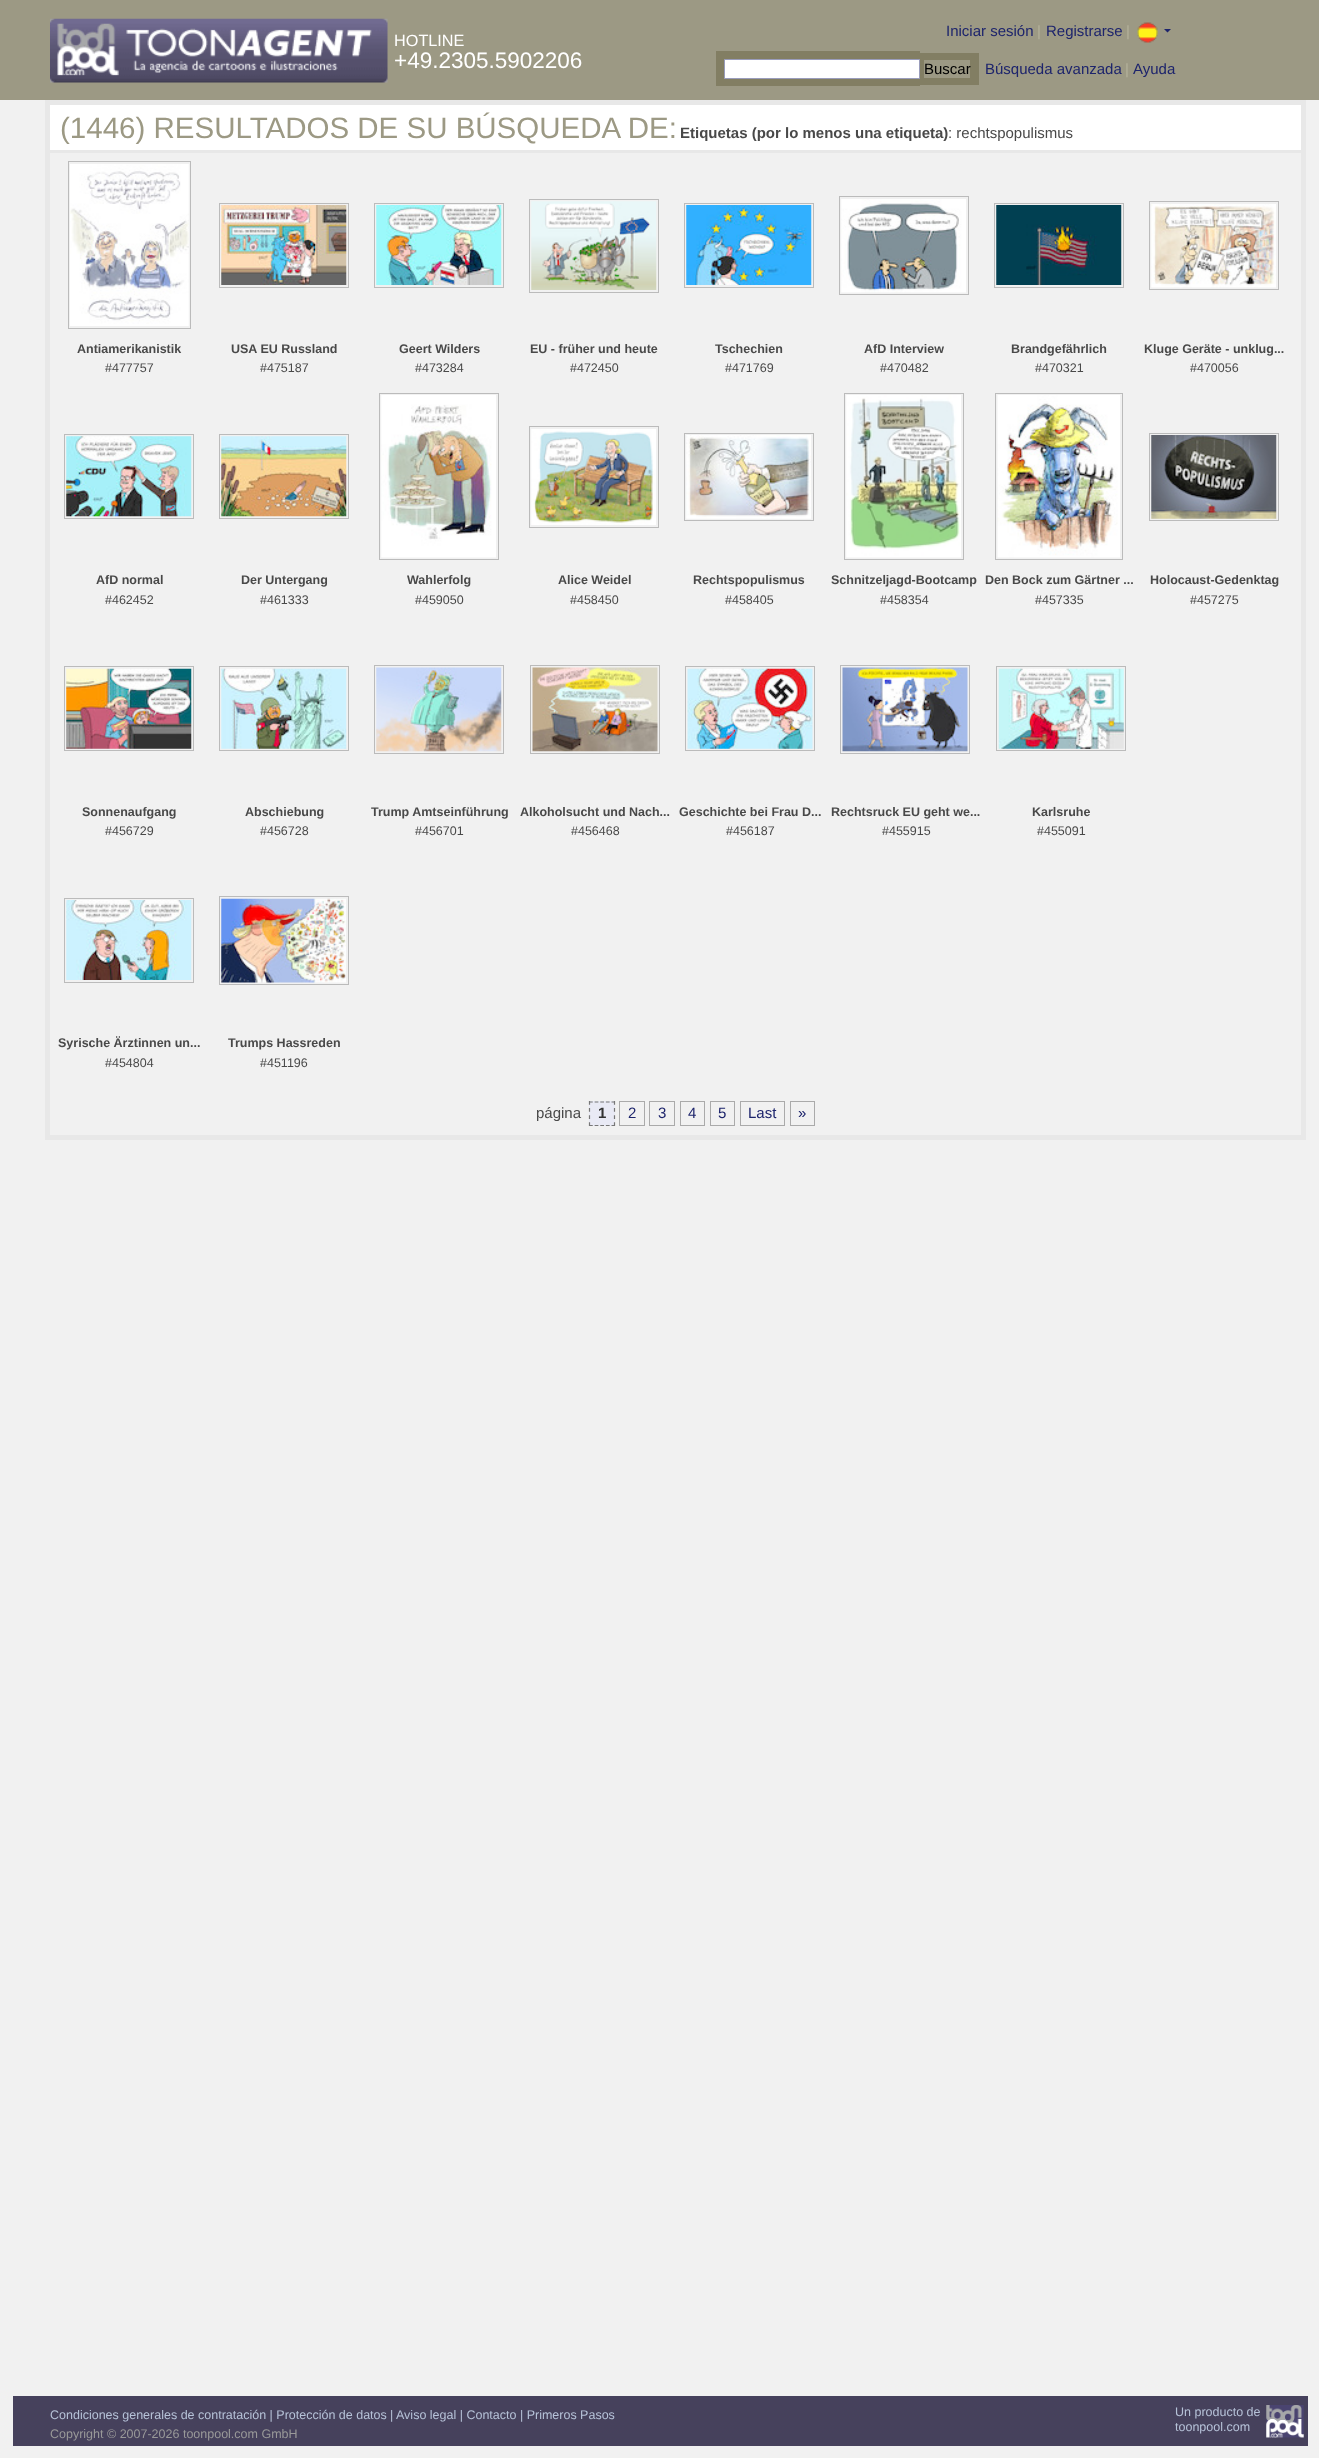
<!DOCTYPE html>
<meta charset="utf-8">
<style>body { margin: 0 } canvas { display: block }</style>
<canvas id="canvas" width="1319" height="2458"></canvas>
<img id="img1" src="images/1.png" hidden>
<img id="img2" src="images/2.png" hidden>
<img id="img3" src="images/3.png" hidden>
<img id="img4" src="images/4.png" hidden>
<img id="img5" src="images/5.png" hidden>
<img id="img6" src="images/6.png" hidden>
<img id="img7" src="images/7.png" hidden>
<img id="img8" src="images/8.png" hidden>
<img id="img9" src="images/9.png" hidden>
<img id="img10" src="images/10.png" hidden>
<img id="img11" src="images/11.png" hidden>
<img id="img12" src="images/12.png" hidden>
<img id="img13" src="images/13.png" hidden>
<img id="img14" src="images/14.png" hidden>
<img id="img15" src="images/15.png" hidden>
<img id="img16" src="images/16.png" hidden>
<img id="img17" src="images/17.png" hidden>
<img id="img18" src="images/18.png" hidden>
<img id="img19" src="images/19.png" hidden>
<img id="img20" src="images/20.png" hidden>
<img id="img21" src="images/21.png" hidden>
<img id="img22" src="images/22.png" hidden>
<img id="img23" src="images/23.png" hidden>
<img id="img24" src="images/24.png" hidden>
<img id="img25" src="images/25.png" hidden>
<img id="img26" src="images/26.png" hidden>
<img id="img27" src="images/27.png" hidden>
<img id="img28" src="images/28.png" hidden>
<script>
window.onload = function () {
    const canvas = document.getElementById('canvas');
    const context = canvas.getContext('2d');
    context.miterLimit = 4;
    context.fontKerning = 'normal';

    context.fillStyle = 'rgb(241, 241, 241)';
    context.fillRect(0, 0, 1319, 2458);
    context.fillStyle = 'rgb(156, 153, 132)';
    context.fillRect(0, 0, 1319, 100);
    context.drawImage(document.getElementById('img1'), 1137, 22, 21, 21);
    context.fillStyle = 'rgb(29, 36, 108)';
    context.beginPath();
    context.moveTo(1164, 29);
    context.lineTo(1171, 29);
    context.lineTo(1167.5, 32.5);
    context.closePath();
    context.fill();
    context.drawImage(document.getElementById('img2'), 50, 18, 338, 65);
    context.fillStyle = 'rgb(130, 126, 99)';
    context.fillRect(716, 51, 204, 35);
    context.fillRect(920, 53, 59, 32);
    context.fillStyle = 'rgb(255, 255, 255)';
    context.beginPath();
    context.rect(724.5, 59.5, 195, 19);
    context.fill();
    context.strokeStyle = 'rgb(153, 156, 187)';
    context.stroke();
    context.fillStyle = 'rgb(156, 153, 132)';
    context.fillRect(924, 60, 46, 18);
    context.strokeStyle = 'rgb(232, 232, 232)';
    context.lineWidth = 5;
    context.strokeRect(47.5, 102.5, 1256, 1035);
    context.fillStyle = 'rgb(255, 255, 255)';
    context.fillRect(50, 105, 1251, 45);
    context.fillStyle = 'rgb(232, 232, 232)';
    context.fillRect(50, 150, 1251, 3);
    context.strokeStyle = 'rgb(187, 187, 187)';
    context.lineWidth = 1;
    context.strokeRect(68.5, 161.5, 122, 167);
    context.drawImage(document.getElementById('img3'), 70, 164, 119, 162);
    context.strokeRect(219.5, 203.5, 129, 84);
    context.drawImage(document.getElementById('img4'), 221, 205, 126, 80);
    context.strokeRect(374.5, 203.5, 129, 84);
    context.drawImage(document.getElementById('img5'), 376, 205, 126, 80);
    context.strokeRect(529.5, 199.5, 129, 93);
    context.drawImage(document.getElementById('img6'), 531, 201, 126, 89);
    context.strokeRect(684.5, 203.5, 129, 84);
    context.drawImage(document.getElementById('img7'), 686, 205, 126, 80);
    context.strokeRect(839.5, 196.5, 129, 98);
    context.drawImage(document.getElementById('img8'), 841, 199, 125, 94);
    context.strokeRect(994.5, 203.5, 129, 84);
    context.drawImage(document.getElementById('img9'), 996, 205, 126, 80);
    context.strokeRect(1149.5, 201.5, 129, 88);
    context.drawImage(document.getElementById('img10'), 1151, 204, 125, 84);
    context.strokeRect(64.5, 434.5, 129, 84);
    context.drawImage(document.getElementById('img11'), 66, 436, 126, 81);
    context.strokeRect(219.5, 434.5, 129, 84);
    context.drawImage(document.getElementById('img12'), 221, 436, 126, 81);
    context.strokeRect(379.5, 393.5, 119, 166);
    context.drawImage(document.getElementById('img13'), 381, 395, 115, 163);
    context.strokeRect(529.5, 426.5, 129, 101);
    context.drawImage(document.getElementById('img14'), 531, 429, 125, 96);
    context.strokeRect(684.5, 433.5, 129, 87);
    context.drawImage(document.getElementById('img15'), 686, 435, 125, 84);
    context.strokeRect(844.5, 393.5, 119, 166);
    context.drawImage(document.getElementById('img16'), 846, 395, 115, 163);
    context.strokeRect(995.5, 393.5, 127, 166);
    context.drawImage(document.getElementById('img17'), 997, 395, 123, 163);
    context.strokeRect(1149.5, 433.5, 129, 87);
    context.drawImage(document.getElementById('img18'), 1151, 435, 126, 84);
    context.strokeRect(64.5, 666.5, 129, 84);
    context.drawImage(document.getElementById('img19'), 66, 668, 126, 81);
    context.strokeRect(219.5, 666.5, 129, 84);
    context.drawImage(document.getElementById('img20'), 221, 668, 126, 81);
    context.strokeRect(374.5, 665.5, 129, 88);
    context.drawImage(document.getElementById('img21'), 376, 667, 126, 85);
    context.strokeRect(530.5, 665.5, 129, 88);
    context.drawImage(document.getElementById('img22'), 532, 667, 126, 85);
    context.strokeRect(685.5, 666.5, 129, 84);
    context.drawImage(document.getElementById('img23'), 687, 668, 126, 81);
    context.strokeRect(840.5, 665.5, 129, 88);
    context.drawImage(document.getElementById('img24'), 842, 667, 126, 85);
    context.strokeRect(996.5, 666.5, 129, 84);
    context.drawImage(document.getElementById('img25'), 998, 668, 126, 81);
    context.strokeRect(64.5, 898.5, 129, 84);
    context.drawImage(document.getElementById('img26'), 66, 900, 126, 80);
    context.strokeRect(219.5, 896.5, 129, 88);
    context.drawImage(document.getElementById('img27'), 221, 898, 125, 85);
    context.fillStyle = 'rgb(233, 234, 245)';
    context.fillRect(589, 1101, 26, 25);
    context.beginPath();
    context.moveTo(589, 1102);
    context.lineTo(615, 1102);
    context.strokeStyle = 'rgb(119, 119, 119)';
    context.lineWidth = 1.2;
    context.setLineDash([3.75, 1.88]);
    context.stroke();
    context.beginPath();
    context.moveTo(614.5, 1101);
    context.lineTo(614.5, 1126);
    context.setLineDash([3.75, 3.34]);
    context.stroke();
    context.beginPath();
    context.moveTo(589, 1125.5);
    context.lineTo(615, 1125.5);
    context.setLineDash([3.75, 1.88]);
    context.stroke();
    context.beginPath();
    context.moveTo(589.5, 1101);
    context.lineTo(589.5, 1126);
    context.setLineDash([3.75, 3.34]);
    context.stroke();
    context.strokeStyle = 'rgb(170, 170, 170)';
    context.lineWidth = 1;
    context.setLineDash([]);
    context.strokeRect(619.5, 1101.5, 25, 24);
    context.strokeRect(649.5, 1101.5, 25, 24);
    context.strokeRect(680.5, 1101.5, 24, 24);
    context.strokeRect(710.5, 1101.5, 24, 24);
    context.strokeRect(740.5, 1101.5, 44, 24);
    context.strokeRect(790.5, 1101.5, 24, 24);
    context.fillStyle = 'rgb(70, 65, 92)';
    context.fillRect(13, 2396, 1295, 50);
    context.drawImage(document.getElementById('img28'), 1266, 2405, 38, 33);
    context.font = '15px Liberation Sans';
    context.fillStyle = 'rgb(29, 36, 108)';
    context.fillText('Iniciar sesión', 946, 36);
    context.fillStyle = 'rgb(181, 178, 155)';
    context.fillText('|', 1037, 36);
    context.fillStyle = 'rgb(29, 36, 108)';
    context.fillText('Registrarse', 1046, 36);
    context.fillStyle = 'rgb(181, 178, 155)';
    context.fillText('|', 1126, 36);
    context.font = '16.25px Liberation Sans';
    context.fillStyle = 'rgb(255, 255, 255)';
    context.fillText('HOTLINE', 394, 46);
    context.font = '22.5px Liberation Sans';
    context.fillText('+49.2305.5902206', 394, 68);
    context.font = '15px Liberation Sans';
    context.fillStyle = 'rgb(0, 0, 0)';
    context.fillText('Buscar', 924, 74);
    context.fillStyle = 'rgb(29, 36, 108)';
    context.fillText('Búsqueda avanzada', 985, 74);
    context.fillStyle = 'rgb(181, 178, 155)';
    context.fillText('|', 1125, 74);
    context.fillStyle = 'rgb(29, 36, 108)';
    context.fillText('Ayuda', 1133, 74);
    context.font = '29.5px Liberation Sans';
    context.fillStyle = 'rgb(156, 153, 132)';
    context.fillText('(1446) RESULTADOS DE SU BÚSQUEDA DE:', 60, 138);
    context.font = 'bold 15px Liberation Sans';
    context.fillStyle = 'rgb(73, 73, 73)';
    context.fillText('Etiquetas (por lo menos una etiqueta)', 680, 138);
    context.font = '15px Liberation Sans';
    context.fillText(': rechtspopulismus', 948, 138);
    context.font = 'bold 12.5px Liberation Sans';
    context.fillText('Antiamerikanistik', 77, 353);
    context.font = '12.5px Liberation Sans';
    context.fillText('#477757', 105, 372);
    context.font = 'bold 12.5px Liberation Sans';
    context.fillText('USA EU Russland', 231, 353);
    context.font = '12.5px Liberation Sans';
    context.fillText('#475187', 260, 372);
    context.font = 'bold 12.5px Liberation Sans';
    context.fillText('Geert Wilders', 399, 353);
    context.font = '12.5px Liberation Sans';
    context.fillText('#473284', 415, 372);
    context.font = 'bold 12.5px Liberation Sans';
    context.fillText('EU - früher und heute', 530, 353);
    context.font = '12.5px Liberation Sans';
    context.fillText('#472450', 570, 372);
    context.font = 'bold 12.5px Liberation Sans';
    context.fillText('Tschechien', 715, 353);
    context.font = '12.5px Liberation Sans';
    context.fillText('#471769', 725, 372);
    context.font = 'bold 12.5px Liberation Sans';
    context.fillText('AfD Interview', 864, 353);
    context.font = '12.5px Liberation Sans';
    context.fillText('#470482', 880, 372);
    context.font = 'bold 12.5px Liberation Sans';
    context.fillText('Brandgefährlich', 1011, 353);
    context.font = '12.5px Liberation Sans';
    context.fillText('#470321', 1035, 372);
    context.font = 'bold 12.5px Liberation Sans';
    context.fillText('Kluge Geräte - unklug...', 1144, 353);
    context.font = '12.5px Liberation Sans';
    context.fillText('#470056', 1190, 372);
    context.font = 'bold 12.5px Liberation Sans';
    context.fillText('AfD normal', 96, 584);
    context.font = '12.5px Liberation Sans';
    context.fillText('#462452', 105, 604);
    context.font = 'bold 12.5px Liberation Sans';
    context.fillText('Der Untergang', 241, 584);
    context.font = '12.5px Liberation Sans';
    context.fillText('#461333', 260, 604);
    context.font = 'bold 12.5px Liberation Sans';
    context.fillText('Wahlerfolg', 407, 584);
    context.font = '12.5px Liberation Sans';
    context.fillText('#459050', 415, 604);
    context.font = 'bold 12.5px Liberation Sans';
    context.fillText('Alice Weidel', 558, 584);
    context.font = '12.5px Liberation Sans';
    context.fillText('#458450', 570, 604);
    context.font = 'bold 12.5px Liberation Sans';
    context.fillText('Rechtspopulismus', 693, 584);
    context.font = '12.5px Liberation Sans';
    context.fillText('#458405', 725, 604);
    context.font = 'bold 12.5px Liberation Sans';
    context.fillText('Schnitzeljagd-Bootcamp', 831, 584);
    context.font = '12.5px Liberation Sans';
    context.fillText('#458354', 880, 604);
    context.font = 'bold 12.5px Liberation Sans';
    context.fillText('Den Bock zum Gärtner ...', 985, 584);
    context.font = '12.5px Liberation Sans';
    context.fillText('#457335', 1035, 604);
    context.font = 'bold 12.5px Liberation Sans';
    context.fillText('Holocaust-Gedenktag', 1150, 584);
    context.font = '12.5px Liberation Sans';
    context.fillText('#457275', 1190, 604);
    context.font = 'bold 12.5px Liberation Sans';
    context.fillText('Sonnenaufgang', 82, 816);
    context.font = '12.5px Liberation Sans';
    context.fillText('#456729', 105, 835);
    context.font = 'bold 12.5px Liberation Sans';
    context.fillText('Abschiebung', 245, 816);
    context.font = '12.5px Liberation Sans';
    context.fillText('#456728', 260, 835);
    context.font = 'bold 12.5px Liberation Sans';
    context.fillText('Trump Amtseinführung', 371, 816);
    context.font = '12.5px Liberation Sans';
    context.fillText('#456701', 415, 835);
    context.font = 'bold 12.5px Liberation Sans';
    context.fillText('Alkoholsucht und Nach...', 520, 816);
    context.font = '12.5px Liberation Sans';
    context.fillText('#456468', 571, 835);
    context.font = 'bold 12.5px Liberation Sans';
    context.fillText('Geschichte bei Frau D...', 679, 816);
    context.font = '12.5px Liberation Sans';
    context.fillText('#456187', 726, 835);
    context.font = 'bold 12.5px Liberation Sans';
    context.fillText('Rechtsruck EU geht we...', 831, 816);
    context.font = '12.5px Liberation Sans';
    context.fillText('#455915', 882, 835);
    context.font = 'bold 12.5px Liberation Sans';
    context.fillText('Karlsruhe', 1032, 816);
    context.font = '12.5px Liberation Sans';
    context.fillText('#455091', 1037, 835);
    context.font = 'bold 12.5px Liberation Sans';
    context.fillText('Syrische Ärztinnen un...', 58, 1047);
    context.font = '12.5px Liberation Sans';
    context.fillText('#454804', 105, 1067);
    context.font = 'bold 12.5px Liberation Sans';
    context.fillText('Trumps Hassreden', 228, 1047);
    context.font = '12.5px Liberation Sans';
    context.fillText('#451196', 260, 1067);
    context.font = '15px Liberation Sans';
    context.fillText('página', 536, 1118);
    context.font = 'bold 15px Liberation Sans';
    context.fillStyle = 'rgb(51, 51, 51)';
    context.fillText('1', 598, 1118);
    context.font = '15px Liberation Sans';
    context.fillStyle = 'rgb(29, 36, 108)';
    context.fillText('2', 628, 1118);
    context.fillText('3', 658, 1118);
    context.fillText('4', 688, 1118);
    context.fillText('5', 718, 1118);
    context.fillText('Last', 748, 1118);
    context.fillText('»', 798, 1118);
    context.font = '12.5px Liberation Sans';
    context.fillStyle = 'rgb(182, 194, 216)';
    context.fillText('Condiciones generales de contratación | Protección de datos', 50, 2419);
    context.fillText('|', 390, 2419);
    context.fillText('Aviso legal | Contacto | Primeros Pasos', 396, 2419);
    context.fillStyle = 'rgb(153, 153, 153)';
    context.fillText('Copyright © 2007-2026 toonpool.com GmbH', 50, 2438);
    context.fillStyle = 'rgb(182, 194, 216)';
    context.fillText('Un producto de', 1175, 2416);
    context.fillText('toonpool.com', 1175, 2431);
};
</script>
